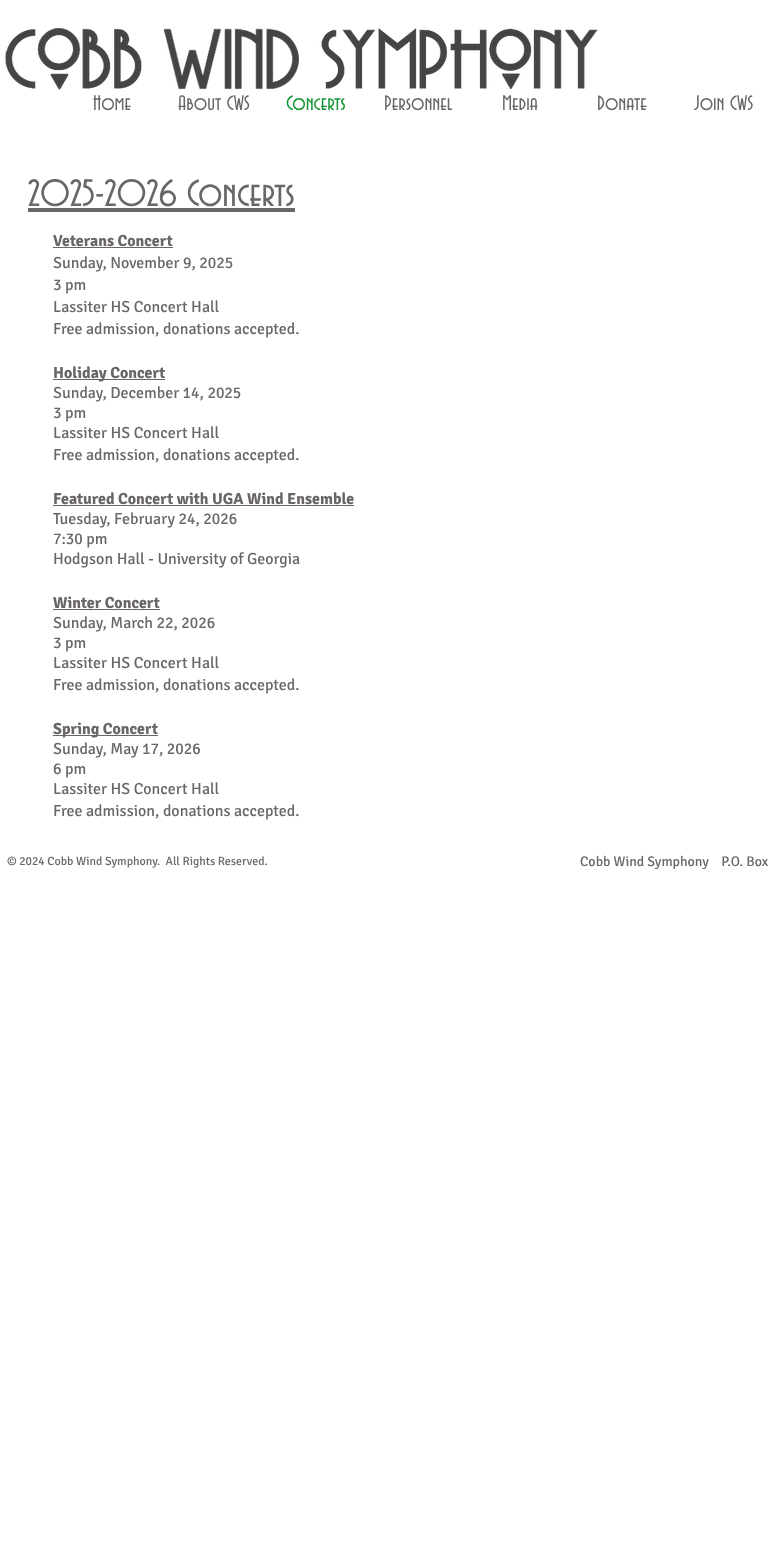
<!DOCTYPE html>
<meta charset="utf-8">
<style>body { margin: 0 } canvas { display: block }</style>
<canvas id="canvas" width="768" height="1543"></canvas>
<img id="img1" src="images/1.png" hidden>
<script>
window.onload = function () {
    const canvas = document.getElementById('canvas');
    const context = canvas.getContext('2d');
    context.miterLimit = 4;
    context.fontKerning = 'normal';

    context.fillStyle = 'rgb(255, 255, 255)';
    context.fillRect(0, 0, 768, 1543);
    context.drawImage(document.getElementById('img1'), 3, 27, 595, 63);
    context.fillStyle = 'rgb(106, 102, 102)';
    context.fillRect(28, 208, 267, 4);
    context.fillRect(53, 247, 120, 1);
    context.fillRect(53, 379, 112, 1);
    context.fillRect(53, 505, 301, 1);
    context.fillRect(53, 609, 107, 1);
    context.fillRect(53, 735, 105, 1);
    context.font = '22px "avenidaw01"';
    context.fillText('Home', 93, 110);
    context.fillText('About CWS', 178, 110);
    context.fillStyle = 'rgb(18, 150, 51)';
    context.fillText('Concerts', 286, 110);
    context.fillStyle = 'rgb(106, 102, 102)';
    context.fillText('Personnel', 384, 110);
    context.fillText('Media', 502, 110);
    context.fillText('Donate', 597, 110);
    context.fillText('Join CWS', 694, 110);
    context.font = '40px "avenidaw01"';
    context.fillText('2025-2026 Concerts', 28, 206);
    context.font = 'bold 16px Signika';
    context.fillText('Veterans Concert', 53, 246);
    context.font = '16px Signika';
    context.fillText('Sunday, November 9, 2025', 53, 268);
    context.fillText('3 pm', 53, 290);
    context.fillText('Lassiter HS Concert Hall', 53, 312);
    context.fillText('Free admission, donations accepted.', 53, 334);
    context.font = 'bold 16px Signika';
    context.fillText('Holiday Concert', 53, 378);
    context.font = '16px Signika';
    context.fillText('Sunday, December 14, 2025', 53, 398);
    context.fillText('3 pm', 53, 418);
    context.fillText('Lassiter HS Concert Hall', 53, 438);
    context.fillText('Free admission, donations accepted.', 53, 460);
    context.font = 'bold 16px Signika';
    context.fillText('Featured Concert with UGA Wind Ensemble', 53, 504);
    context.font = '16px Signika';
    context.fillText('Tuesday, February 24, 2026', 53, 524);
    context.fillText('7:30 pm', 53, 544);
    context.fillText('Hodgson Hall - University of Georgia', 53, 564);
    context.font = 'bold 16px Signika';
    context.fillText('Winter Concert', 53, 608);
    context.font = '16px Signika';
    context.fillText('Sunday, March 22, 2026', 53, 628);
    context.fillText('3 pm', 53, 648);
    context.fillText('Lassiter HS Concert Hall', 53, 668);
    context.fillText('Free admission, donations accepted.', 53, 690);
    context.font = 'bold 16px Signika';
    context.fillText('Spring Concert', 53, 734);
    context.font = '16px Signika';
    context.fillText('Sunday, May 17, 2026', 53, 754);
    context.fillText('6 pm', 53, 774);
    context.fillText('Lassiter HS Concert Hall', 53, 794);
    context.fillText('Free admission, donations accepted.', 53, 816);
    context.font = '12px Signika';
    context.fillText('© 2024 Cobb Wind Symphony.  All Rights Reserved.', 7, 865);
    context.font = '14px Signika';
    context.fillText('Cobb Wind Symphony    P.O. Box', 580, 866);
};
</script>
